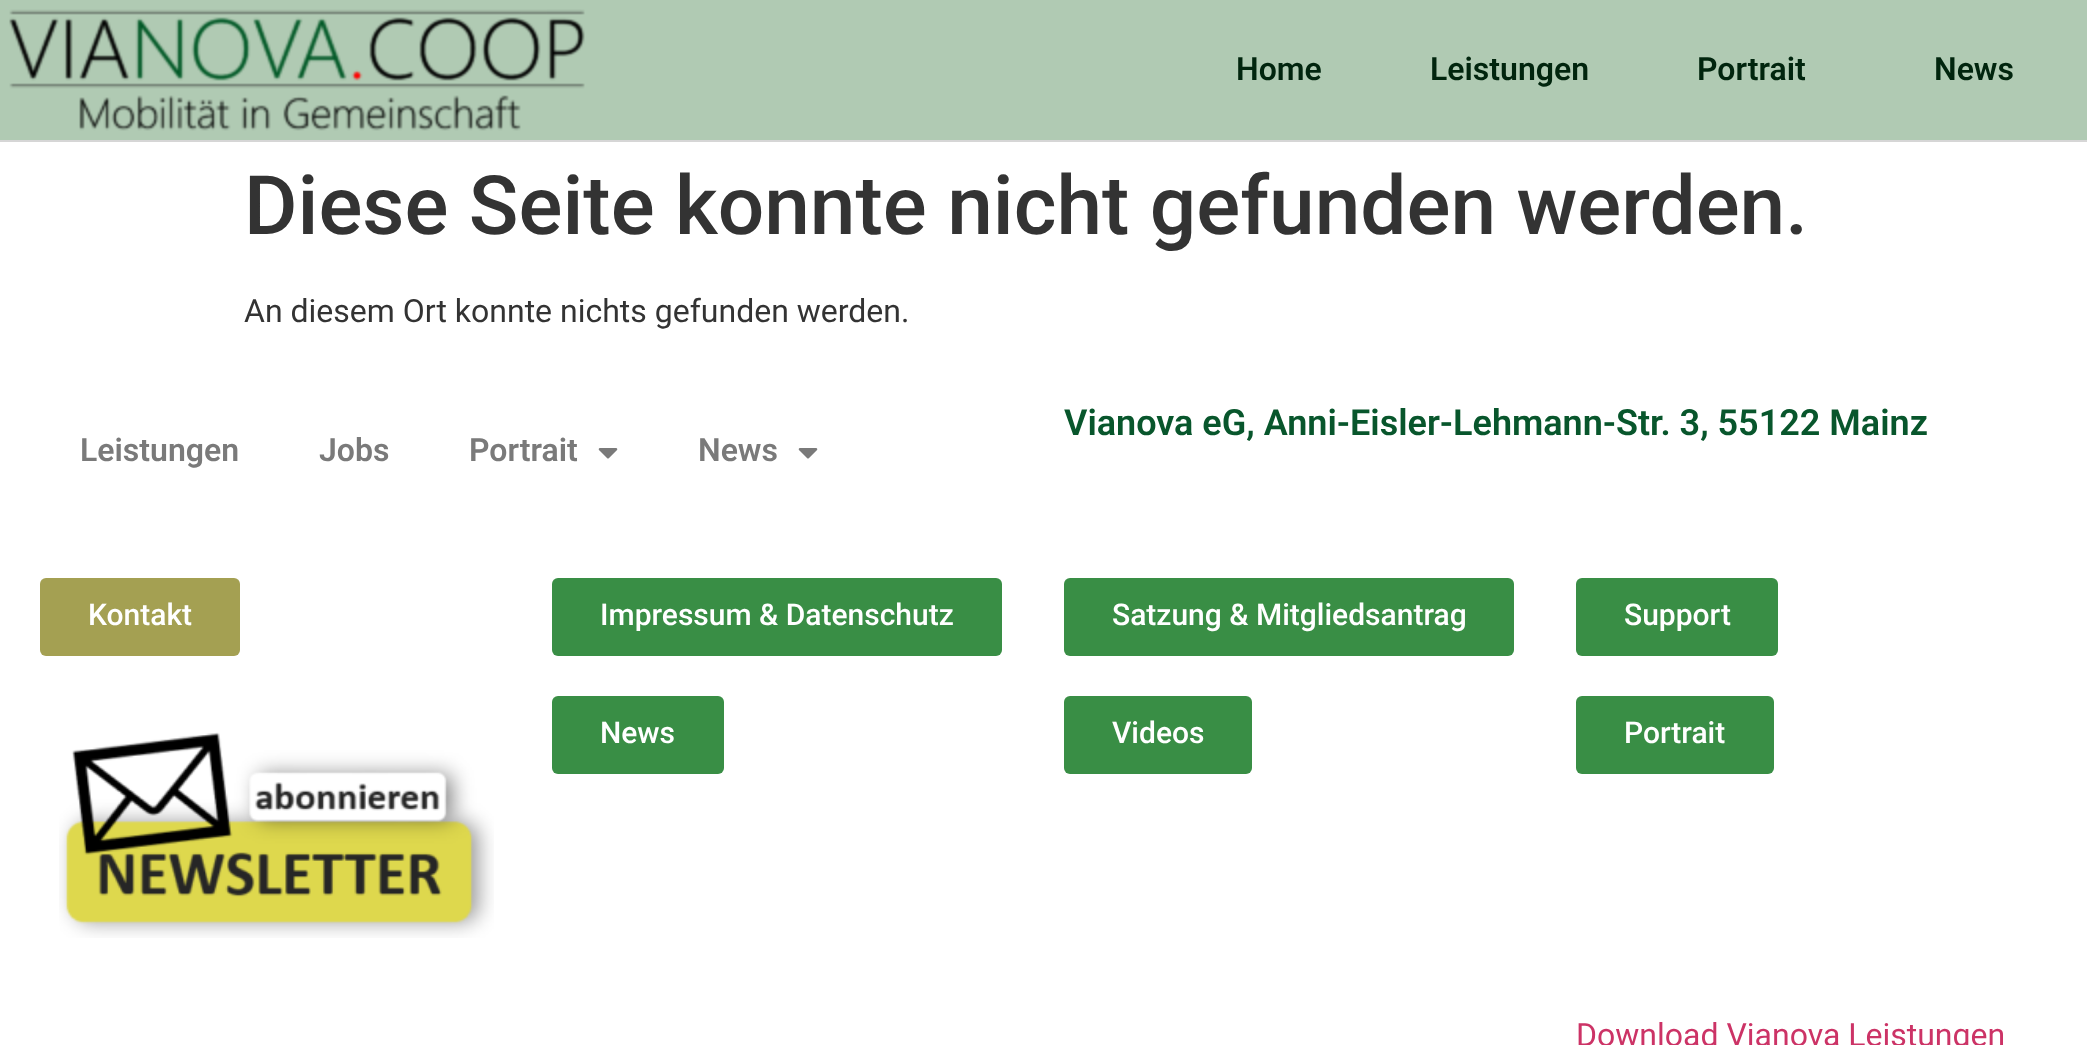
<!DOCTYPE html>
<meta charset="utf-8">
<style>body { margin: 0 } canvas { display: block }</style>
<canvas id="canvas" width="2087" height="1045"></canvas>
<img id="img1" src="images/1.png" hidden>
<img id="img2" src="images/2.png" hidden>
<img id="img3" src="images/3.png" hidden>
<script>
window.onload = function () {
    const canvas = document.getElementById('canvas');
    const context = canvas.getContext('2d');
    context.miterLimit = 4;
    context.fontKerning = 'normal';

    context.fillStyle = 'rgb(255, 255, 255)';
    context.fillRect(0, 0, 2087, 1045);
    context.fillStyle = 'rgb(176, 202, 179)';
    context.fillRect(0, 0, 2087, 140);
    context.fillStyle = 'rgb(214, 214, 214)';
    context.fillRect(0, 140, 2087, 2);
    context.drawImage(document.getElementById('img1'), 9, 9, 576, 122);
    context.drawImage(document.getElementById('img2'), 598, 448, 20, 11);
    context.drawImage(document.getElementById('img2'), 798, 448, 20, 11);
    context.fillStyle = 'rgb(164, 160, 82)';
    context.beginPath();
    context.roundRect(40, 578, 200, 78, 6);
    context.fill();
    context.fillStyle = 'rgb(57, 142, 69)';
    context.beginPath();
    context.roundRect(552, 578, 450, 78, 6);
    context.fill();
    context.beginPath();
    context.roundRect(1064, 578, 450, 78, 6);
    context.fill();
    context.beginPath();
    context.roundRect(1576, 578, 202, 78, 6);
    context.fill();
    context.drawImage(document.getElementById('img3'), 59, 732, 435, 206);
    context.beginPath();
    context.roundRect(552, 696, 172, 78, 6);
    context.fill();
    context.beginPath();
    context.roundRect(1064, 696, 188, 78, 6);
    context.fill();
    context.beginPath();
    context.roundRect(1576, 696, 198, 78, 6);
    context.fill();
    context.font = '600 32px Roboto';
    context.fillStyle = 'rgb(1, 37, 14)';
    context.fillText('Home', 1236, 80);
    context.fillText('Leistungen', 1430, 80);
    context.fillText('Portrait', 1697, 80);
    context.fillText('News', 1934, 80);
    context.font = '500 82px Roboto';
    context.fillStyle = 'rgb(51, 51, 51)';
    context.fillText('Diese Seite konnte nicht gefunden werden.', 244, 234);
    context.font = '32px Roboto';
    context.fillText('An diesem Ort konnte nichts gefunden werden.', 244, 322);
    context.font = '600 36px Roboto';
    context.fillStyle = 'rgb(8, 86, 44)';
    context.fillText('Vianova eG, Anni-Eisler-Lehmann-Str. 3, 55122 Mainz', 1064, 435);
    context.font = '600 32px Roboto';
    context.fillStyle = 'rgb(122, 122, 122)';
    context.fillText('Leistungen', 80, 461);
    context.fillText('Jobs', 319, 461);
    context.fillText('Portrait', 469, 461);
    context.fillText('News', 698, 461);
    context.font = '500 30px Roboto';
    context.fillStyle = 'rgb(255, 255, 255)';
    context.fillText('Kontakt', 88, 625);
    context.fillText('Impressum & Datenschutz', 600, 625);
    context.fillText('Satzung & Mitgliedsantrag', 1112, 625);
    context.fillText('Support', 1624, 625);
    context.fillText('News', 600, 743);
    context.fillText('Videos', 1112, 743);
    context.fillText('Portrait', 1624, 743);
    context.font = '32px Roboto';
    context.fillStyle = 'rgb(204, 51, 102)';
    context.fillText('Download Vianova Leistungen', 1576, 1046);
};
</script>
